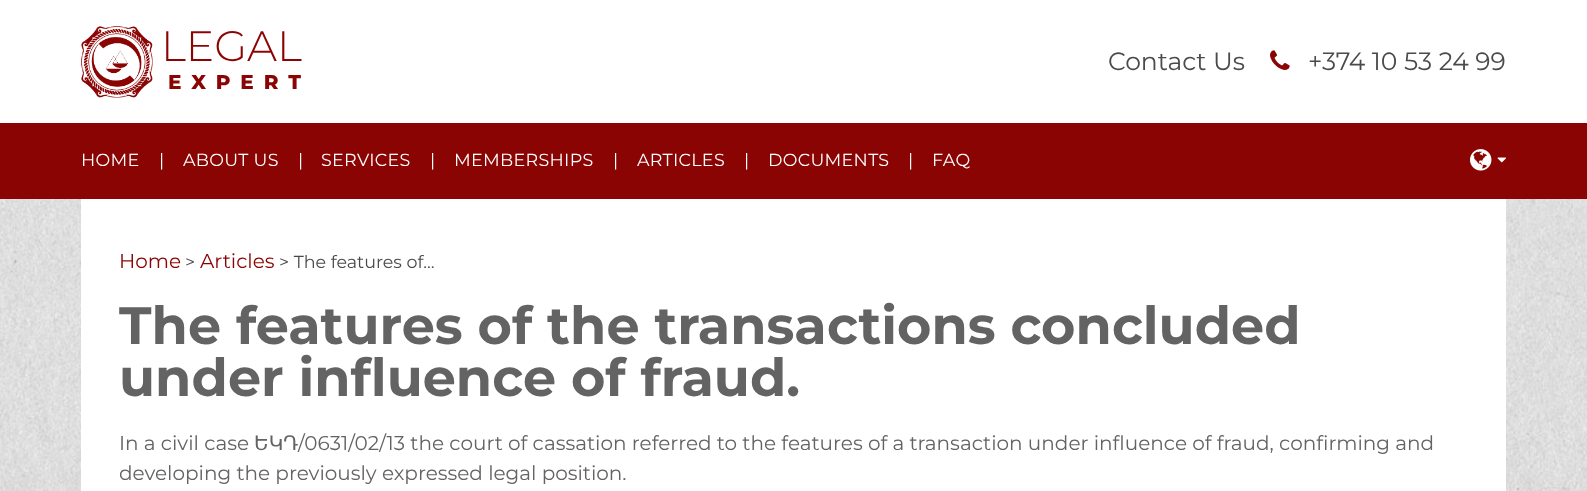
<!DOCTYPE html>
<meta charset="utf-8">
<style>body { margin: 0 } canvas { display: block }</style>
<canvas id="canvas" width="1587" height="491"></canvas>
<img id="img1" src="images/1.png" hidden>
<img id="img2" src="images/2.png" hidden>
<img id="img3" src="images/3.png" hidden>
<img id="img4" src="images/4.png" hidden>
<img id="img5" src="images/5.png" hidden>
<script>
window.onload = function () {
    const canvas = document.getElementById('canvas');
    const context = canvas.getContext('2d');
    context.miterLimit = 4;
    context.fontKerning = 'normal';

    context.fillStyle = 'rgb(255, 255, 255)';
    context.fillRect(0, 0, 1587, 491);
    context.drawImage(document.getElementById('img1'), 0, 199, 1587, 292);
    context.drawImage(document.getElementById('img2'), 81, 26, 72, 72);
    context.drawImage(document.getElementById('img3'), 1270, 50, 20, 20);
    context.fillStyle = 'rgb(138, 4, 3)';
    context.fillRect(0, 123, 1587, 76);
    context.drawImage(document.getElementById('img4'), 1470, 149, 22, 22);
    context.drawImage(document.getElementById('img5'), 1497, 157, 9, 6);
    context.fillStyle = 'rgb(255, 255, 255)';
    context.fillRect(81, 199, 1425, 292);
    context.font = '300 42.5px Montserrat';
    context.fillStyle = 'rgb(138, 4, 3)';
    context.fillText('LEGAL', 161, 61);
    context.letterSpacing = '10px';
    context.font = '800 20px Montserrat';
    context.fillText('EXPERT', 168, 89);
    context.letterSpacing = '0px';
    context.font = '25px Montserrat';
    context.fillStyle = 'rgb(74, 74, 74)';
    context.fillText('Contact Us', 1108, 70);
    context.fillText('+374 10 53 24 99', 1308, 70);
    context.letterSpacing = '0.3px';
    context.font = '17.5px Montserrat';
    context.fillStyle = 'rgb(255, 255, 255)';
    context.fillText('HOME', 81, 166);
    context.letterSpacing = '0px';
    context.fillText('|', 159, 166);
    context.letterSpacing = '0.3px';
    context.fillText('ABOUT US', 183, 166);
    context.letterSpacing = '0px';
    context.fillText('|', 298, 166);
    context.letterSpacing = '0.3px';
    context.fillText('SERVICES', 321, 166);
    context.letterSpacing = '0px';
    context.fillText('|', 430, 166);
    context.letterSpacing = '0.3px';
    context.fillText('MEMBERSHIPS', 454, 166);
    context.letterSpacing = '0px';
    context.fillText('|', 613, 166);
    context.letterSpacing = '0.3px';
    context.fillText('ARTICLES', 637, 166);
    context.letterSpacing = '0px';
    context.fillText('|', 744, 166);
    context.letterSpacing = '0.3px';
    context.fillText('DOCUMENTS', 768, 166);
    context.letterSpacing = '0px';
    context.fillText('|', 908, 166);
    context.letterSpacing = '0.3px';
    context.fillText('FAQ', 932, 166);
    context.letterSpacing = '0px';
    context.font = '20px Montserrat';
    context.fillStyle = 'rgb(138, 4, 3)';
    context.fillText('Home', 119, 268);
    context.font = '17.5px Montserrat';
    context.fillStyle = 'rgb(74, 74, 74)';
    context.fillText('>', 185, 268);
    context.font = '20px Montserrat';
    context.fillStyle = 'rgb(138, 4, 3)';
    context.fillText('Articles', 200, 268);
    context.font = '17.5px Montserrat';
    context.fillStyle = 'rgb(74, 74, 74)';
    context.fillText('> The features of…', 279, 268);
    context.font = 'bold 52.5px Montserrat';
    context.fillStyle = 'rgb(99, 99, 99)';
    context.fillText('The features of the transactions concluded', 119, 344);
    context.fillText('under influence of fraud.', 119, 396);
    context.font = '20px Montserrat';
    context.fillText('In a civil case', 119, 450);
    context.font = '20px DejaVu Sans';
    context.fillText('ԵԿԴ', 254, 450);
    context.font = '20px Montserrat';
    context.fillText('/0631/02/13 the court of cassation referred to the features of a transaction under influence of fraud, confirming and', 298, 450);
    context.fillText('developing the previously expressed legal position.', 119, 480);
};
</script>
